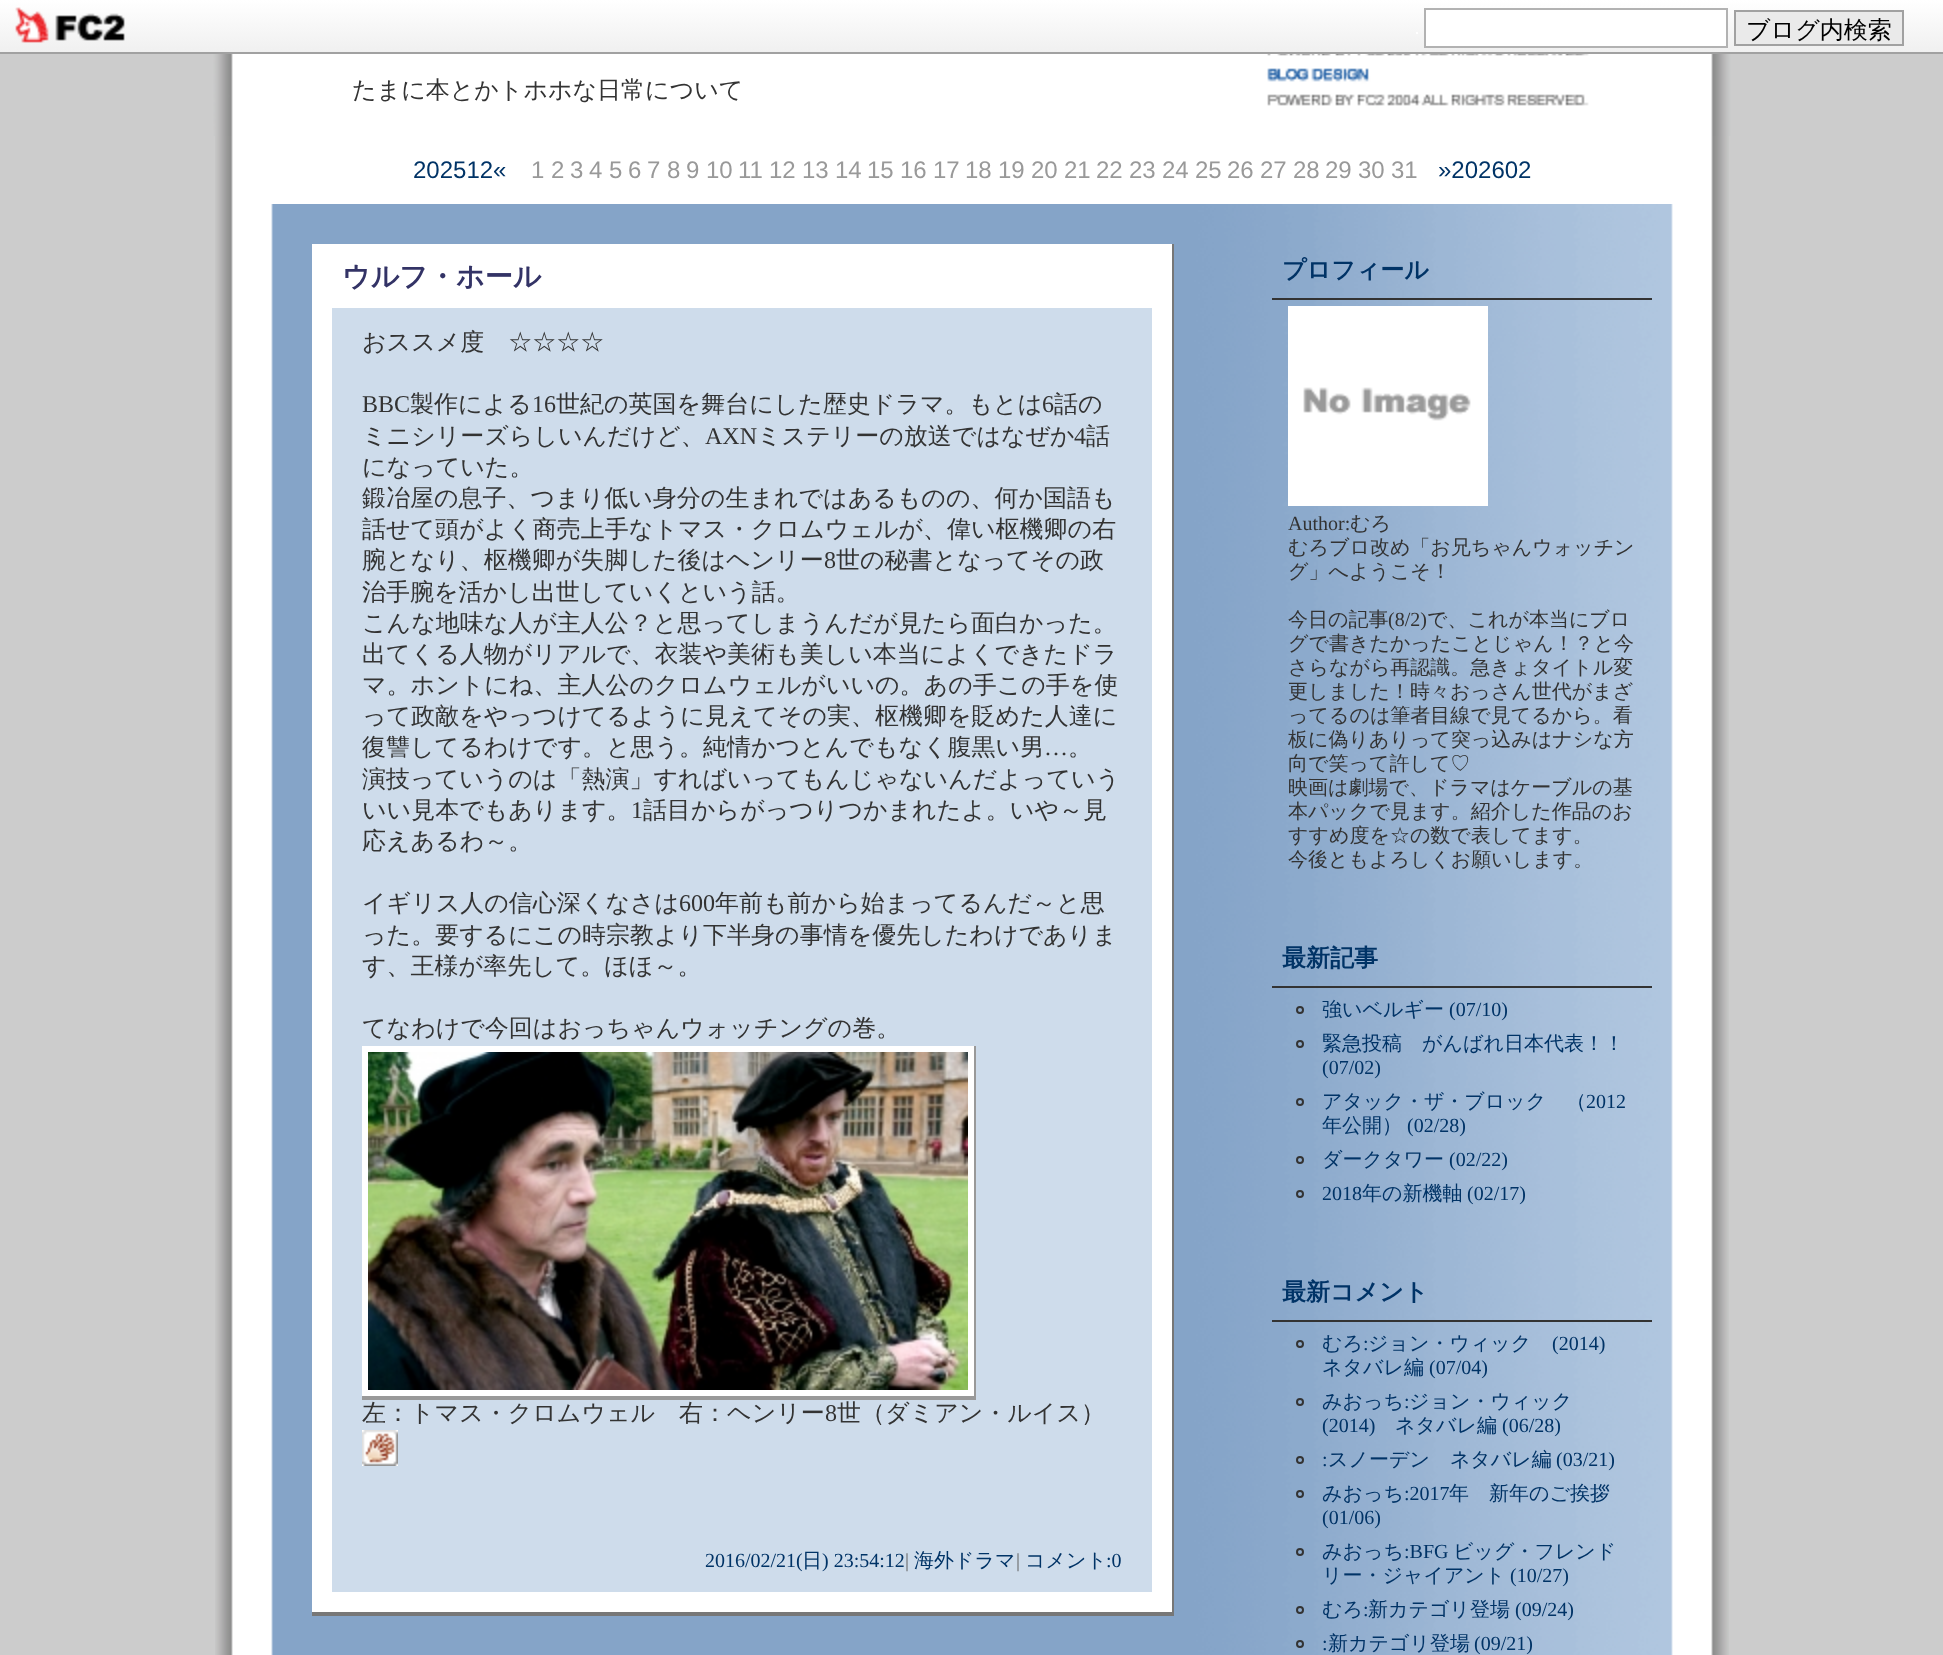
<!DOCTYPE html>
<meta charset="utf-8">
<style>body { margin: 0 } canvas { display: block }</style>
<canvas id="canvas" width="1943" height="1655"></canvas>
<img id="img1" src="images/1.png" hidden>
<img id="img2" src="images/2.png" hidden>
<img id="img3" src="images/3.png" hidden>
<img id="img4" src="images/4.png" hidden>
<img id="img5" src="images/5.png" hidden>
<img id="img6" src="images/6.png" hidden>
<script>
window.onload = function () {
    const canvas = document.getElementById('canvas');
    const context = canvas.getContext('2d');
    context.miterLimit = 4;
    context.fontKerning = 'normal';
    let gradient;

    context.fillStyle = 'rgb(204, 204, 204)';
    context.fillRect(0, 0, 1943, 1655);
    gradient = context.createLinearGradient(0, 0, 0, 52);
    gradient.addColorStop(0, 'rgb(255, 255, 255)');
    gradient.addColorStop(1, 'rgb(240, 240, 240)');
    context.fillStyle = gradient;
    context.fillRect(0, 0, 1943, 52);
    context.fillStyle = 'rgb(161, 161, 161)';
    context.fillRect(0, 52, 1943, 2);
    context.drawImage(document.getElementById('img1'), 15, 7, 110, 36);
    context.fillStyle = 'rgb(255, 255, 255)';
    context.fillRect(1416, 32, 2, 2);
    context.beginPath();
    context.rect(1425, 9, 302, 38);
    context.fill();
    context.strokeStyle = 'rgb(178, 178, 178)';
    context.lineWidth = 2;
    context.stroke();
    context.fillStyle = 'rgb(234, 234, 234)';
    context.beginPath();
    context.rect(1735, 11, 168, 34);
    context.fill();
    context.strokeStyle = 'rgb(161, 161, 161)';
    context.stroke();
    context.drawImage(document.getElementById('img2'), 215, 136, 1514, 1519);
    context.drawImage(document.getElementById('img3'), 212, 54, 1520, 82);
    context.fillStyle = 'rgb(255, 255, 255)';
    context.fillRect(271, 136, 1402, 68);
    context.fillRect(312, 244, 860, 1368);
    context.fillStyle = 'rgb(119, 119, 119)';
    context.fillRect(1172, 244, 2, 1372);
    context.fillRect(312, 1612, 862, 4);
    context.fillStyle = 'rgb(206, 220, 235)';
    context.fillRect(332, 308, 820, 1284);
    context.fillStyle = 'rgb(255, 255, 255)';
    context.fillRect(362, 1046, 612, 350);
    context.fillStyle = 'rgb(153, 153, 153)';
    context.fillRect(974, 1046, 2, 354);
    context.drawImage(document.getElementById('img4'), 368, 1052, 600, 338);
    context.fillRect(362, 1396, 614, 4);
    context.fillStyle = 'rgb(255, 255, 255)';
    context.fillRect(362, 1430, 36, 36);
    context.drawImage(document.getElementById('img5'), 362, 1430, 36, 36);
    context.fillStyle = 'rgb(51, 51, 51)';
    context.fillRect(1272, 298, 380, 2);
    context.drawImage(document.getElementById('img6'), 1288, 306, 200, 200);
    context.fillRect(1272, 986, 380, 2);
    context.beginPath();
    context.arc(1300, 1010, 3, 0, 2 * Math.PI);
    context.strokeStyle = 'rgb(51, 51, 51)';
    context.stroke();
    context.beginPath();
    context.arc(1300, 1044, 3, 0, 2 * Math.PI);
    context.stroke();
    context.beginPath();
    context.arc(1300, 1102, 3, 0, 2 * Math.PI);
    context.stroke();
    context.beginPath();
    context.arc(1300, 1160, 3, 0, 2 * Math.PI);
    context.stroke();
    context.beginPath();
    context.arc(1300, 1194, 3, 0, 2 * Math.PI);
    context.stroke();
    context.fillRect(1272, 1320, 380, 2);
    context.beginPath();
    context.arc(1300, 1344, 3, 0, 2 * Math.PI);
    context.stroke();
    context.beginPath();
    context.arc(1300, 1402, 3, 0, 2 * Math.PI);
    context.stroke();
    context.beginPath();
    context.arc(1300, 1460, 3, 0, 2 * Math.PI);
    context.stroke();
    context.beginPath();
    context.arc(1300, 1494, 3, 0, 2 * Math.PI);
    context.stroke();
    context.beginPath();
    context.arc(1300, 1552, 3, 0, 2 * Math.PI);
    context.stroke();
    context.beginPath();
    context.arc(1300, 1610, 3, 0, 2 * Math.PI);
    context.stroke();
    context.beginPath();
    context.arc(1300, 1644, 3, 0, 2 * Math.PI);
    context.stroke();
    context.font = '500 24px WenQuanYi Zen Hei';
    context.fillStyle = 'rgb(0, 0, 0)';
    context.fillText('ブログ内検索', 1746, 38);
    context.fillStyle = 'rgb(51, 51, 51)';
    context.fillText('たまに本とかトホホな日常について', 352, 98);
    context.font = '24px Liberation Sans';
    context.fillStyle = 'rgb(0, 51, 102)';
    context.fillText('202512«', 413, 178);
    context.fillStyle = 'rgb(153, 153, 153)';
    context.fillText('1', 531, 178);
    context.fillText('2', 551, 178);
    context.fillText('3', 570, 178);
    context.fillText('4', 589, 178);
    context.fillText('5', 609, 178);
    context.fillText('6', 628, 178);
    context.fillText('7', 647, 178);
    context.fillText('8', 667, 178);
    context.fillText('9', 686, 178);
    context.fillText('10', 706, 178);
    context.fillText('11', 738, 178);
    context.fillText('12', 769, 178);
    context.fillText('13', 802, 178);
    context.fillText('14', 835, 178);
    context.fillText('15', 867, 178);
    context.fillText('16', 900, 178);
    context.fillText('17', 933, 178);
    context.fillText('18', 965, 178);
    context.fillText('19', 998, 178);
    context.fillText('20', 1031, 178);
    context.fillText('21', 1064, 178);
    context.fillText('22', 1096, 178);
    context.fillText('23', 1129, 178);
    context.fillText('24', 1162, 178);
    context.fillText('25', 1195, 178);
    context.fillText('26', 1227, 178);
    context.fillText('27', 1260, 178);
    context.fillText('28', 1293, 178);
    context.fillText('29', 1325, 178);
    context.fillText('30', 1358, 178);
    context.fillText('31', 1391, 178);
    context.fillStyle = 'rgb(0, 51, 102)';
    context.fillText('»202602', 1438, 178);
    context.font = 'bold 28px WenQuanYi Zen Hei';
    context.fillStyle = 'rgb(51, 51, 102)';
    context.fillText('ウルフ・ホール', 342, 286);
    context.font = '500 24px WenQuanYi Zen Hei';
    context.fillStyle = 'rgb(51, 51, 51)';
    context.fillText('おススメ度　☆☆☆☆', 362, 350);
    context.font = '24px Liberation Serif';
    context.fillText('BBC', 362, 412);
    context.font = '500 24px WenQuanYi Zen Hei';
    context.fillText('製作による', 410, 412);
    context.font = '24px Liberation Serif';
    context.fillText('16', 532, 412);
    context.font = '500 24px WenQuanYi Zen Hei';
    context.fillText('世紀の英国を舞台にした歴史ドラマ。もとは', 556, 412);
    context.font = '24px Liberation Serif';
    context.fillText('6', 1042, 412);
    context.font = '500 24px WenQuanYi Zen Hei';
    context.fillText('話の', 1054, 412);
    context.fillText('ミニシリーズらしいんだけど、', 362, 444);
    context.font = '24px Liberation Serif';
    context.fillText('AXN', 705, 444);
    context.font = '500 24px WenQuanYi Zen Hei';
    context.fillText('ミステリーの放送ではなぜか', 757, 444);
    context.font = '24px Liberation Serif';
    context.fillText('4', 1074, 444);
    context.font = '500 24px WenQuanYi Zen Hei';
    context.fillText('話', 1086, 444);
    context.fillText('になっていた。', 362, 475);
    context.fillText('鍛冶屋の息子、つまり低い身分の生まれではあるものの、何か国語も', 362, 506);
    context.fillText('話せて頭がよく商売上手なトマス・クロムウェルが、偉い枢機卿の右', 362, 537);
    context.fillText('腕となり、枢機卿が失脚した後はヘンリー', 362, 568);
    context.font = '24px Liberation Serif';
    context.fillText('8', 824, 568);
    context.font = '500 24px WenQuanYi Zen Hei';
    context.fillText('世の秘書となってその政', 836, 568);
    context.fillText('治手腕を活かし出世していくという話。', 362, 600);
    context.fillText('こんな地味な人が主人公？と思ってしまうんだが見たら面白かった。', 362, 631);
    context.fillText('出てくる人物がリアルで、衣装や美術も美しい本当によくできたドラ', 362, 662);
    context.fillText('マ。ホントにね、主人公のクロムウェルがいいの。あの手この手を使', 362, 693);
    context.fillText('って政敵をやっつけてるように見えてその実、枢機卿を貶めた人達に', 362, 724);
    context.fillText('復讐してるわけです。と思う。純情かつとんでもなく腹黒い男', 362, 755);
    context.font = '24px Liberation Serif';
    context.fillText('…', 1044, 755);
    context.font = '500 24px WenQuanYi Zen Hei';
    context.fillText('。', 1068, 755);
    context.fillText('演技っていうのは「熱演」すればいってもんじゃないんだよっていう', 362, 787);
    context.fillText('いい見本でもあります。', 362, 818);
    context.font = '24px Liberation Serif';
    context.fillText('1', 631, 818);
    context.font = '500 24px WenQuanYi Zen Hei';
    context.fillText('話目からがっつりつかまれたよ。いや～見', 643, 818);
    context.fillText('応えあるわ～。', 362, 849);
    context.fillText('イギリス人の信心深くなさは', 362, 911);
    context.font = '24px Liberation Serif';
    context.fillText('600', 679, 911);
    context.font = '500 24px WenQuanYi Zen Hei';
    context.fillText('年前も前から始まってるんだ～と思', 715, 911);
    context.fillText('った。要するにこの時宗教より下半身の事情を優先したわけでありま', 362, 943);
    context.fillText('す、王様が率先して。ほほ～。', 362, 974);
    context.fillText('てなわけで今回はおっちゃんウォッチングの巻。', 362, 1036);
    context.fillText('左：トマス・クロムウェル　右：ヘンリー', 362, 1421);
    context.font = '24px Liberation Serif';
    context.fillText('8', 825, 1421);
    context.font = '500 24px WenQuanYi Zen Hei';
    context.fillText('世（ダミアン・ルイス）', 837, 1421);
    context.font = '20px Liberation Serif';
    context.fillStyle = 'rgb(0, 51, 102)';
    context.fillText('2016/02/21(', 705, 1567);
    context.font = '500 20px WenQuanYi Zen Hei';
    context.fillText('日', 802, 1567);
    context.font = '20px Liberation Serif';
    context.fillText(') 23:54:12', 822, 1567);
    context.fillStyle = 'rgb(102, 102, 102)';
    context.fillText('|', 905, 1567);
    context.font = '500 20px WenQuanYi Zen Hei';
    context.fillStyle = 'rgb(0, 51, 102)';
    context.fillText('海外ドラマ', 914, 1567);
    context.font = '20px Liberation Serif';
    context.fillStyle = 'rgb(102, 102, 102)';
    context.fillText('|', 1016, 1567);
    context.font = '500 20px WenQuanYi Zen Hei';
    context.fillStyle = 'rgb(0, 51, 102)';
    context.fillText('コメント', 1025, 1567);
    context.font = '20px Liberation Serif';
    context.fillText(':0', 1106, 1567);
    context.font = 'bold 24px WenQuanYi Zen Hei';
    context.fillText('プロフィール', 1282, 278);
    context.font = '20px Liberation Serif';
    context.fillStyle = 'rgb(51, 51, 51)';
    context.fillText('Author:', 1288, 530);
    context.font = '500 20px WenQuanYi Zen Hei';
    context.fillText('むろ', 1350, 530);
    context.fillText('むろブロ改め「お兄ちゃんウォッチン', 1288, 554);
    context.fillText('グ」へようこそ！', 1288, 578);
    context.fillText('今日の記事', 1288, 626);
    context.font = '20px Liberation Serif';
    context.fillText('(8/2)', 1388, 626);
    context.font = '500 20px WenQuanYi Zen Hei';
    context.fillText('で、これが本当にブロ', 1427, 626);
    context.fillText('グで書きたかったことじゃん！？と今', 1288, 650);
    context.fillText('さらながら再認識。急きょタイトル変', 1288, 674);
    context.fillText('更しました！時々おっさん世代がまざ', 1288, 698);
    context.fillText('ってるのは筆者目線で見てるから。看', 1288, 722);
    context.fillText('板に偽りありって突っ込みはナシな方', 1288, 746);
    context.fillText('向で笑って許して♡', 1288, 770);
    context.fillText('映画は劇場で、ドラマはケーブルの基', 1288, 794);
    context.fillText('本パックで見ます。紹介した作品のお', 1288, 818);
    context.fillText('すすめ度を☆の数で表してます。', 1288, 842);
    context.fillText('今後ともよろしくお願いします。', 1288, 866);
    context.font = 'bold 24px WenQuanYi Zen Hei';
    context.fillStyle = 'rgb(0, 51, 102)';
    context.fillText('最新記事', 1282, 966);
    context.font = '500 20px WenQuanYi Zen Hei';
    context.fillText('強いベルギー', 1322, 1016);
    context.font = '20px Liberation Serif';
    context.fillText('(07/10)', 1449, 1016);
    context.font = '500 20px WenQuanYi Zen Hei';
    context.fillText('緊急投稿　がんばれ日本代表！！', 1322, 1050);
    context.font = '20px Liberation Serif';
    context.fillText('(07/02)', 1322, 1074);
    context.font = '500 20px WenQuanYi Zen Hei';
    context.fillText('アタック・ザ・ブロック　（', 1322, 1108);
    context.font = '20px Liberation Serif';
    context.fillText('2012', 1586, 1108);
    context.font = '500 20px WenQuanYi Zen Hei';
    context.fillText('年公開）', 1322, 1132);
    context.font = '20px Liberation Serif';
    context.fillText('(02/28)', 1407, 1132);
    context.font = '500 20px WenQuanYi Zen Hei';
    context.fillText('ダークタワー', 1322, 1166);
    context.font = '20px Liberation Serif';
    context.fillText('(02/22)', 1449, 1166);
    context.fillText('2018', 1322, 1200);
    context.font = '500 20px WenQuanYi Zen Hei';
    context.fillText('年の新機軸', 1362, 1200);
    context.font = '20px Liberation Serif';
    context.fillText('(02/17)', 1467, 1200);
    context.font = 'bold 24px WenQuanYi Zen Hei';
    context.fillText('最新コメント', 1282, 1300);
    context.font = '500 20px WenQuanYi Zen Hei';
    context.fillText('むろ', 1322, 1350);
    context.font = '20px Liberation Serif';
    context.fillText(':', 1363, 1350);
    context.font = '500 20px WenQuanYi Zen Hei';
    context.fillText('ジョン・ウィック', 1368, 1350);
    context.font = '20px Liberation Serif';
    context.fillText('(2014)', 1552, 1350);
    context.font = '500 20px WenQuanYi Zen Hei';
    context.fillText('ネタバレ編', 1322, 1374);
    context.font = '20px Liberation Serif';
    context.fillText('(07/04)', 1429, 1374);
    context.font = '500 20px WenQuanYi Zen Hei';
    context.fillText('みおっち', 1322, 1408);
    context.font = '20px Liberation Serif';
    context.fillText(':', 1404, 1408);
    context.font = '500 20px WenQuanYi Zen Hei';
    context.fillText('ジョン・ウィック', 1409, 1408);
    context.font = '20px Liberation Serif';
    context.fillText('(2014)', 1322, 1432);
    context.font = '500 20px WenQuanYi Zen Hei';
    context.fillText('ネタバレ編', 1395, 1432);
    context.font = '20px Liberation Serif';
    context.fillText('(06/28)', 1502, 1432);
    context.fillText(':', 1322, 1466);
    context.font = '500 20px WenQuanYi Zen Hei';
    context.fillText('スノーデン　ネタバレ編', 1328, 1466);
    context.font = '20px Liberation Serif';
    context.fillText('(03/21)', 1556, 1466);
    context.font = '500 20px WenQuanYi Zen Hei';
    context.fillText('みおっち', 1322, 1500);
    context.font = '20px Liberation Serif';
    context.fillText(':2017', 1404, 1500);
    context.font = '500 20px WenQuanYi Zen Hei';
    context.fillText('年　新年のご挨拶', 1449, 1500);
    context.font = '20px Liberation Serif';
    context.fillText('(01/06)', 1322, 1524);
    context.font = '500 20px WenQuanYi Zen Hei';
    context.fillText('みおっち', 1322, 1558);
    context.font = '20px Liberation Serif';
    context.fillText(':BFG', 1404, 1558);
    context.font = '500 20px WenQuanYi Zen Hei';
    context.fillText('ビッグ・フレンド', 1453, 1558);
    context.fillText('リー・ジャイアント', 1322, 1582);
    context.font = '20px Liberation Serif';
    context.fillText('(10/27)', 1510, 1582);
    context.font = '500 20px WenQuanYi Zen Hei';
    context.fillText('むろ', 1322, 1616);
    context.font = '20px Liberation Serif';
    context.fillText(':', 1363, 1616);
    context.font = '500 20px WenQuanYi Zen Hei';
    context.fillText('新カテゴリ登場', 1368, 1616);
    context.font = '20px Liberation Serif';
    context.fillText('(09/24)', 1515, 1616);
    context.fillText(':', 1322, 1650);
    context.font = '500 20px WenQuanYi Zen Hei';
    context.fillText('新カテゴリ登場', 1328, 1650);
    context.font = '20px Liberation Serif';
    context.fillText('(09/21)', 1474, 1650);
};
</script>
